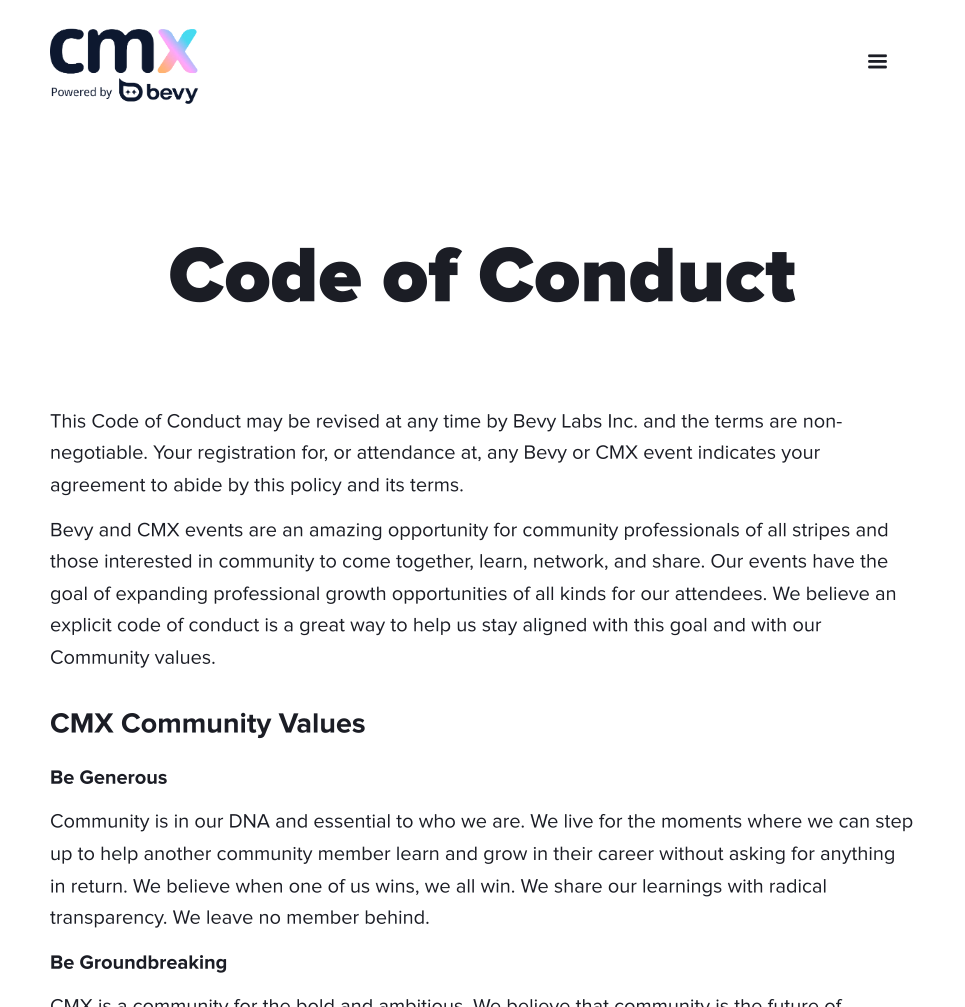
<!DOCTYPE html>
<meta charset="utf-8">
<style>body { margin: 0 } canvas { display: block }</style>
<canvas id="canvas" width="965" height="1007"></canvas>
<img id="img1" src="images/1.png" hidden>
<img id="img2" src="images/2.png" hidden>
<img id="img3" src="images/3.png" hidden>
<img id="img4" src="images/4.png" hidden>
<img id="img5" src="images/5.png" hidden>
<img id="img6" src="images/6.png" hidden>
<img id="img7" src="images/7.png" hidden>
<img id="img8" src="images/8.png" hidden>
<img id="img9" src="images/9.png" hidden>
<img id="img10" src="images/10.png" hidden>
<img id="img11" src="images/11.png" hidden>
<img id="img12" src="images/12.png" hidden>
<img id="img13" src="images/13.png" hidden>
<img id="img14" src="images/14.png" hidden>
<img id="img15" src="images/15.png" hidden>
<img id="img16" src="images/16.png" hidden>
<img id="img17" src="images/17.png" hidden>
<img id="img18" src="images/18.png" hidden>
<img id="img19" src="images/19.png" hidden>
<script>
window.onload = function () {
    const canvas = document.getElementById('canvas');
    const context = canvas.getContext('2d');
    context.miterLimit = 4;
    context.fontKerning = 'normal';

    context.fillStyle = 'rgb(255, 255, 255)';
    context.fillRect(0, 0, 965, 1007);
    context.drawImage(document.getElementById('img1'), 50, 28, 149, 76);
    context.drawImage(document.getElementById('img2'), 868, 54, 19, 15);
    context.drawImage(document.getElementById('img3'), 170, 247, 626, 56);
    context.drawImage(document.getElementById('img4'), 50, 413, 792, 19);
    context.drawImage(document.getElementById('img5'), 51, 445, 769, 18);
    context.drawImage(document.getElementById('img6'), 51, 477, 412, 19);
    context.drawImage(document.getElementById('img7'), 51, 522, 837, 19);
    context.drawImage(document.getElementById('img8'), 50, 553, 838, 19);
    context.drawImage(document.getElementById('img9'), 50, 586, 846, 18);
    context.drawImage(document.getElementById('img10'), 50, 617, 772, 19);
    context.drawImage(document.getElementById('img11'), 51, 650, 164, 18);
    context.drawImage(document.getElementById('img12'), 51, 712, 314, 27);
    context.drawImage(document.getElementById('img13'), 51, 770, 116, 14);
    context.drawImage(document.getElementById('img14'), 51, 813, 862, 19);
    context.drawImage(document.getElementById('img15'), 51, 846, 843, 18);
    context.drawImage(document.getElementById('img16'), 51, 879, 775, 18);
    context.drawImage(document.getElementById('img17'), 50, 910, 379, 18);
    context.drawImage(document.getElementById('img18'), 51, 955, 176, 18);
    context.drawImage(document.getElementById('img19'), 51, 998, 792, 9);
};
</script>
